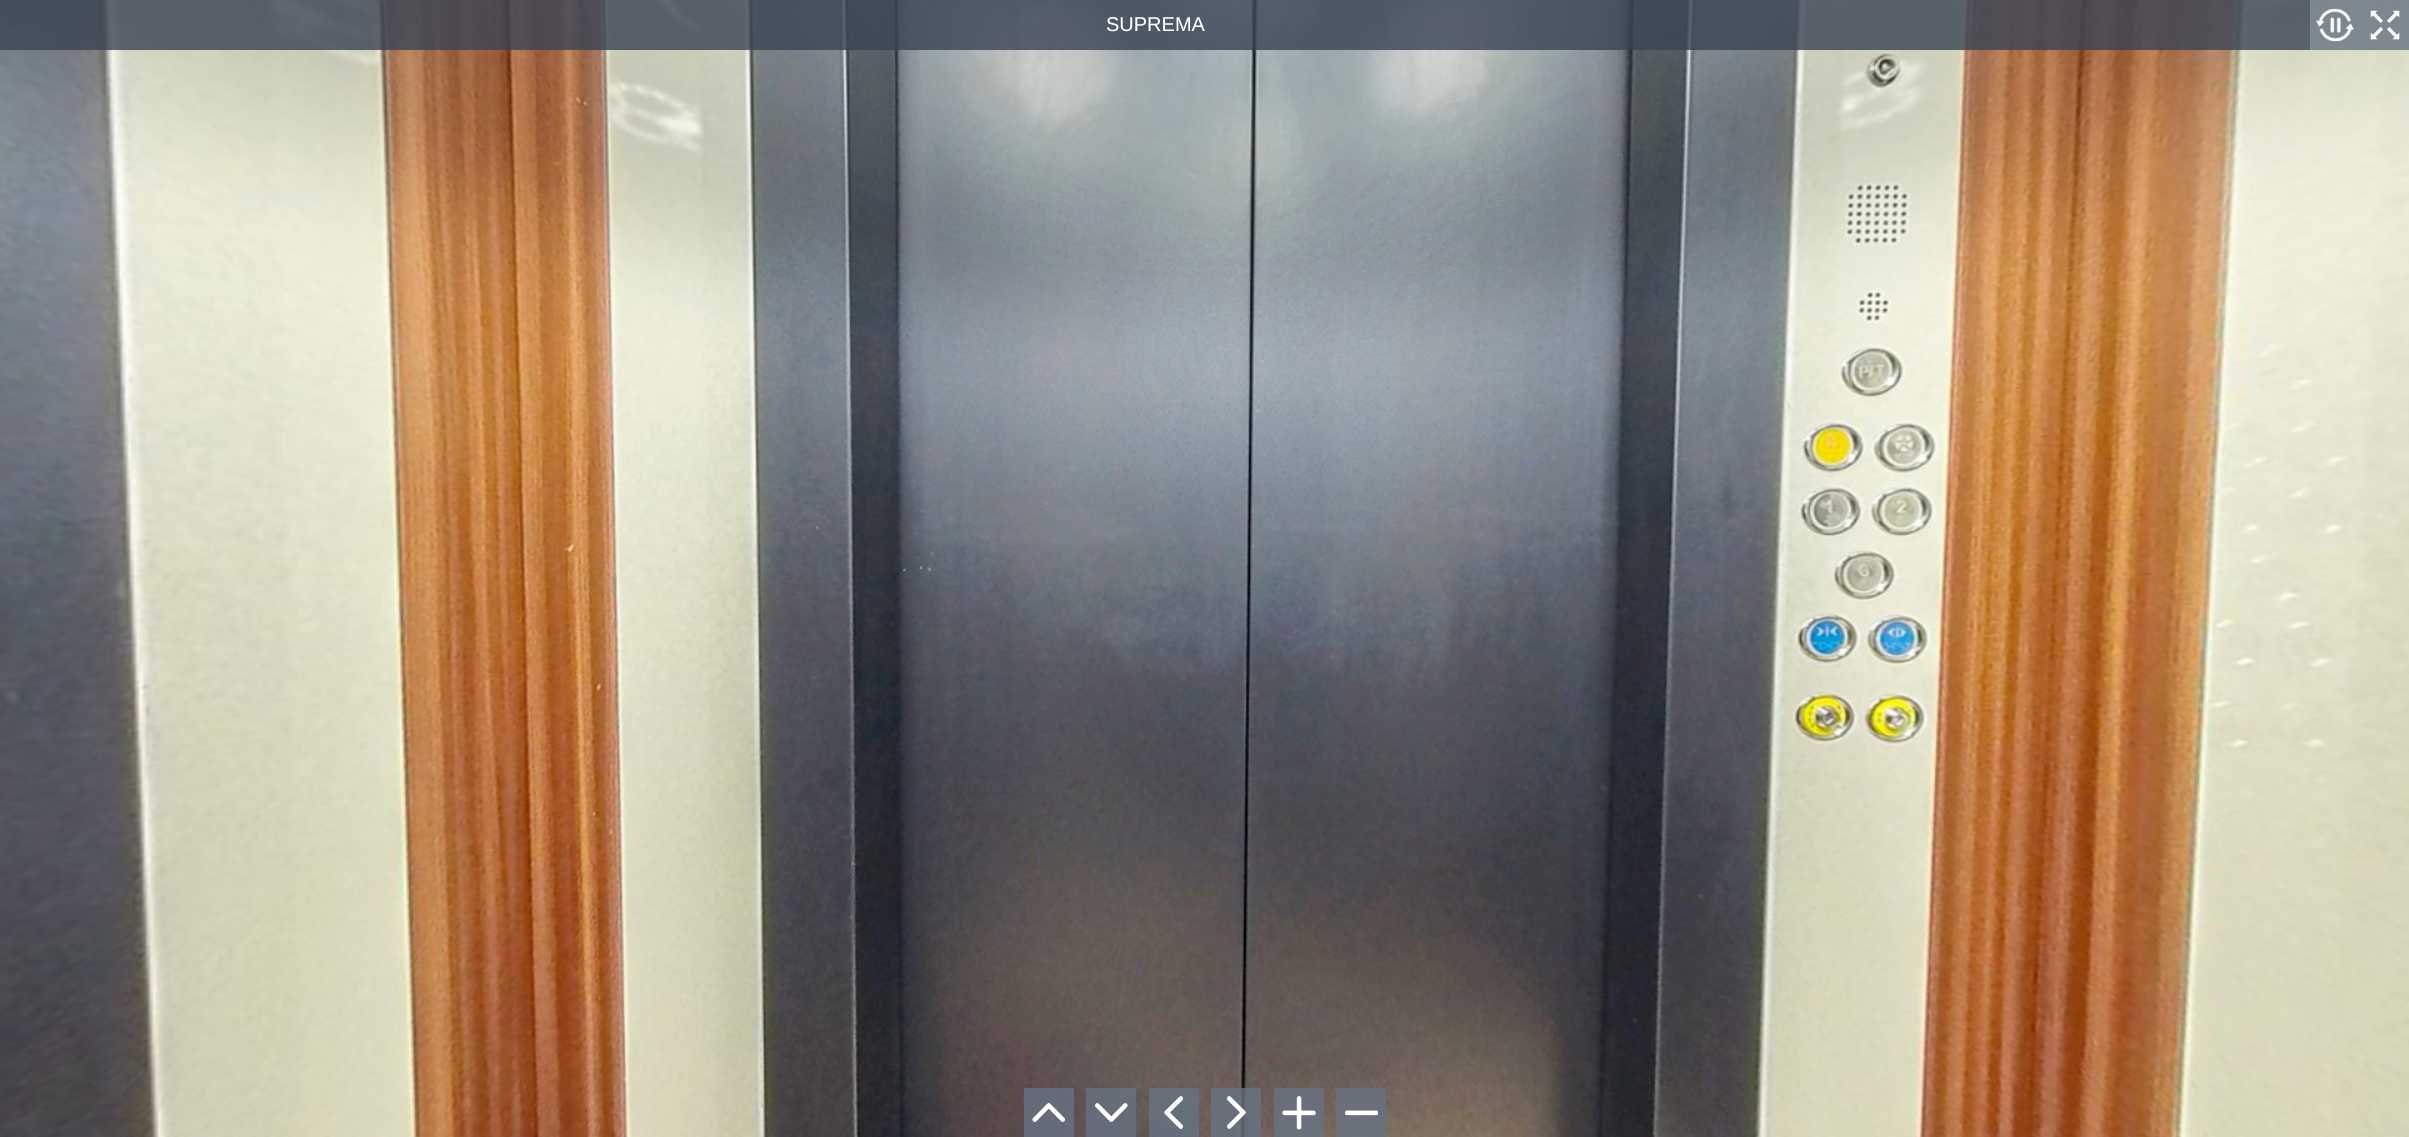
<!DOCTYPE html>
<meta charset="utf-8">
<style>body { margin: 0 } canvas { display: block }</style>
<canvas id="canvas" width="2409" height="1137"></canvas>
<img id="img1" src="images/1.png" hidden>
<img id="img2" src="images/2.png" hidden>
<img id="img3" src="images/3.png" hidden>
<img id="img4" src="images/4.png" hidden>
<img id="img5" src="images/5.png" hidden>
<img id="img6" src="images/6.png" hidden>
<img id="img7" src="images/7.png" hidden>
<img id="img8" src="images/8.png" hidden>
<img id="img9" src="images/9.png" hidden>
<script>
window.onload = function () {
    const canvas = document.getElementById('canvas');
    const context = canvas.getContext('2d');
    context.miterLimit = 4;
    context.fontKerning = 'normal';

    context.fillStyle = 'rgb(255, 255, 255)';
    context.fillRect(0, 0, 2409, 1137);
    context.drawImage(document.getElementById('img1'), 0, 0, 2409, 1137);
    context.fillStyle = 'rgba(58, 68, 84, 0.8)';
    context.fillRect(0, 0, 2310, 50);
    context.fillStyle = 'rgba(103, 115, 131, 0.8)';
    context.fillRect(2310, 0, 50, 50);
    context.drawImage(document.getElementById('img2'), 2316, 8, 38, 34);
    context.fillRect(2360, 0, 49, 50);
    context.drawImage(document.getElementById('img3'), 2370, 10, 30, 30);
    context.fillRect(1024, 1088, 50, 49);
    context.drawImage(document.getElementById('img4'), 1032, 1103, 33, 19);
    context.fillRect(1086, 1088, 50, 49);
    context.drawImage(document.getElementById('img5'), 1095, 1103, 33, 19);
    context.fillRect(1149, 1088, 50, 49);
    context.drawImage(document.getElementById('img6'), 1164, 1096, 19, 33);
    context.fillRect(1211, 1088, 50, 49);
    context.drawImage(document.getElementById('img7'), 1227, 1096, 19, 33);
    context.fillRect(1274, 1088, 50, 49);
    context.drawImage(document.getElementById('img8'), 1282, 1096, 34, 34);
    context.fillRect(1336, 1088, 50, 49);
    context.drawImage(document.getElementById('img9'), 1345, 1110, 33, 6);
    context.font = '20px Liberation Sans';
    context.fillStyle = 'rgb(255, 255, 255)';
    context.fillText('SUPREMA', 1106, 31);
};
</script>
